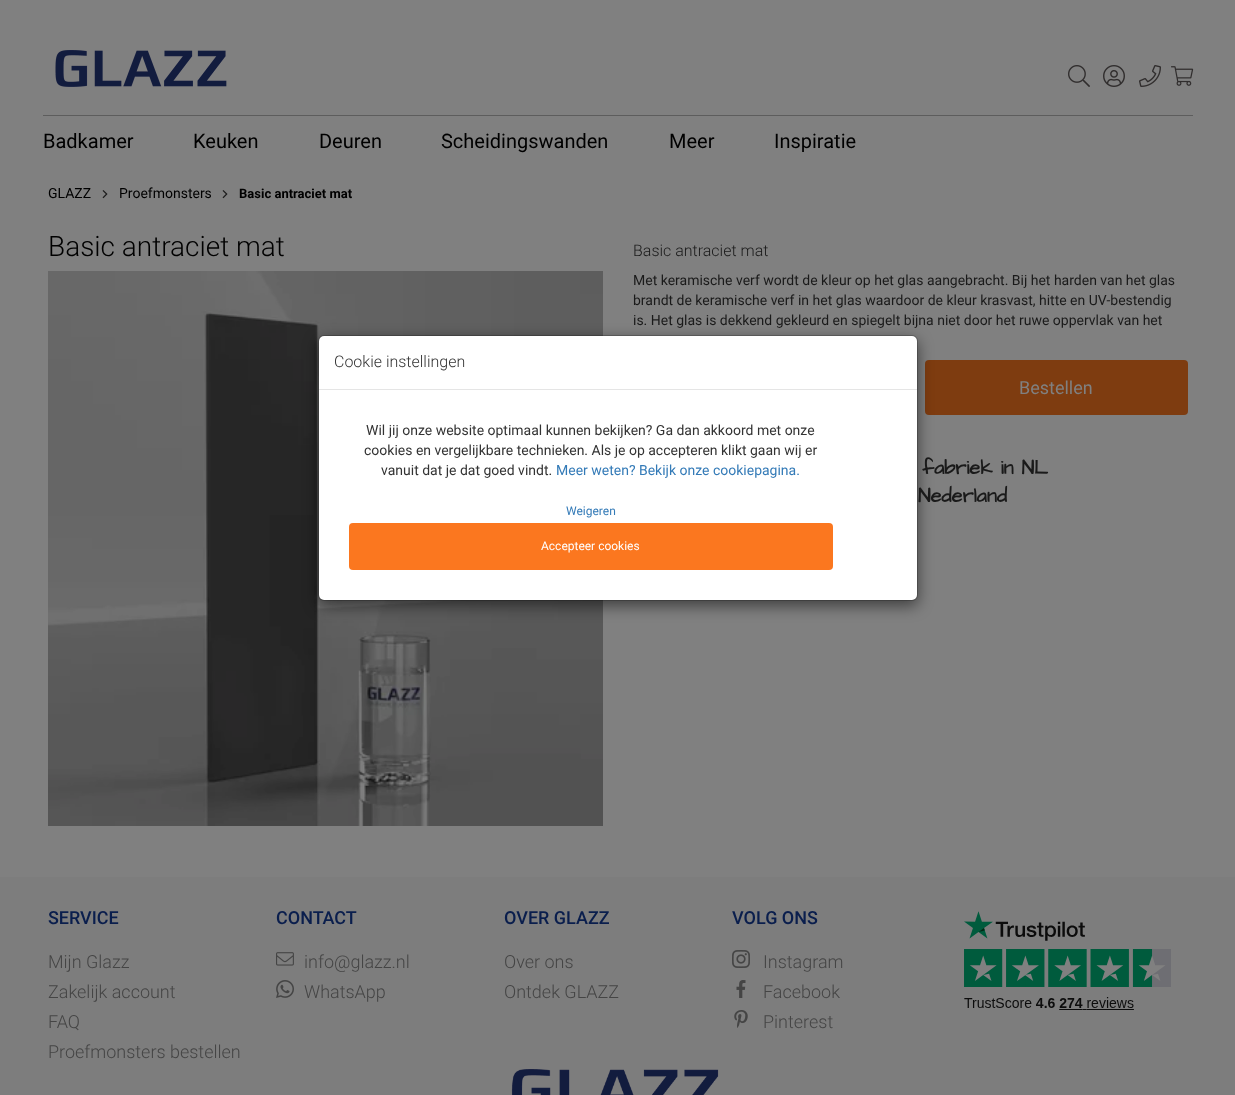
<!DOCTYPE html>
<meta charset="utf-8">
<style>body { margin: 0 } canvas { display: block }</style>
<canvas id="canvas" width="1235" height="1095"></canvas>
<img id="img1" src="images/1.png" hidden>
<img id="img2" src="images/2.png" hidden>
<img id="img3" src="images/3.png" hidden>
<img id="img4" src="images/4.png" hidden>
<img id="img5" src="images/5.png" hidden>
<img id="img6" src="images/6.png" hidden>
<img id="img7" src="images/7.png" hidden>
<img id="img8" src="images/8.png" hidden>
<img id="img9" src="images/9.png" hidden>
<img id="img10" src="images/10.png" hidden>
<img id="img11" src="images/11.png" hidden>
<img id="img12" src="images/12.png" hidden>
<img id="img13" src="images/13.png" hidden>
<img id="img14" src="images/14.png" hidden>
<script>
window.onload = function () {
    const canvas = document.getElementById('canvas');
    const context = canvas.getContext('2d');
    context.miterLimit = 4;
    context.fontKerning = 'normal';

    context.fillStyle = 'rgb(128, 128, 128)';
    context.fillRect(0, 0, 1235, 1095);
    context.fillStyle = 'rgb(93, 93, 93)';
    context.fillRect(43, 115, 1150, 1);
    context.drawImage(document.getElementById('img1'), 55, 50, 172, 37);
    context.drawImage(document.getElementById('img2'), 1068, 65, 22, 22);
    context.drawImage(document.getElementById('img3'), 1103, 65, 22, 22);
    context.drawImage(document.getElementById('img4'), 1139, 65, 22, 22);
    context.drawImage(document.getElementById('img5'), 1171, 66, 23, 20);
    context.drawImage(document.getElementById('img6'), 102, 190, 6, 9);
    context.drawImage(document.getElementById('img6'), 222, 190, 6, 9);
    context.drawImage(document.getElementById('img7'), 48, 271, 555, 555);
    context.fillStyle = 'rgb(126, 60, 16)';
    context.beginPath();
    context.roundRect(925, 360, 263, 55, 4);
    context.fill();
    context.fillStyle = 'rgb(125, 125, 125)';
    context.fillRect(0, 877, 1235, 218);
    context.drawImage(document.getElementById('img8'), 276, 952, 18, 14);
    context.drawImage(document.getElementById('img9'), 276, 980, 18, 18);
    context.drawImage(document.getElementById('img10'), 732, 950, 18, 18);
    context.drawImage(document.getElementById('img11'), 736, 980, 10, 18);
    context.drawImage(document.getElementById('img12'), 734, 1010, 14, 18);
    context.drawImage(document.getElementById('img13'), 964, 911, 207, 99);
    context.drawImage(document.getElementById('img14'), 511, 1069, 208, 26);
    context.fillStyle = 'rgba(0, 0, 0, 0.5)';
    context.filter = 'blur(7.5px)';
    context.beginPath();
    context.roundRect(318, 340, 600, 266, 6);
    context.fill();
    context.filter = 'none';
    context.fillStyle = 'rgb(255, 255, 255)';
    context.beginPath();
    context.roundRect(319, 336, 598, 264, 5);
    context.fill();
    context.beginPath();
    context.roundRect(318.5, 335.5, 599, 265, 5.5);
    context.strokeStyle = 'rgba(0, 0, 0, 0.2)';
    context.stroke();
    context.fillStyle = 'rgb(229, 229, 229)';
    context.fillRect(319, 389, 598, 1);
    context.fillStyle = 'rgb(251, 119, 31)';
    context.beginPath();
    context.roundRect(349, 523, 484, 47, 4);
    context.fill();
    context.font = '20px Roboto';
    context.fillStyle = 'rgb(0, 0, 0)';
    context.fillText('Badkamer', 43, 148);
    context.fillText('Keuken', 193, 148);
    context.fillText('Deuren', 319, 148);
    context.fillText('Scheidingswanden', 441, 148);
    context.fillText('Meer', 669, 148);
    context.fillText('Inspiratie', 774, 148);
    context.font = '14px Roboto';
    context.fillText('GLAZZ', 48, 198);
    context.fillText('Proefmonsters', 119, 198);
    context.font = 'bold 13px Roboto';
    context.fillText('Basic antraciet mat', 239, 198);
    context.font = '300 28px Roboto';
    context.fillText('Basic antraciet mat', 48, 256);
    context.font = '300 16px Roboto';
    context.fillStyle = 'rgb(26, 26, 26)';
    context.fillText('Basic antraciet mat', 633, 256);
    context.font = '14px Roboto';
    context.fillText('Met keramische verf wordt de kleur op het glas aangebracht. Bij het harden van het glas', 633, 285);
    context.fillText('brandt de keramische verf in het glas waardoor de kleur krasvast, hitte en UV-bestendig', 633, 305);
    context.fillText('is. Het glas is dekkend gekleurd en spiegelt bijna niet door het ruwe oppervlak van het', 633, 325);
    context.font = '18px Roboto';
    context.fillStyle = 'rgb(128, 128, 128)';
    context.fillText('Bestellen', 1019, 394);
    context.font = 'bold 20px Architects Daughter';
    context.fillStyle = 'rgb(26, 26, 26)';
    context.fillText('fabriek in NL', 922, 474);
    context.fillText('Nederland', 918, 502);
    context.font = '500 18px Roboto';
    context.fillStyle = 'rgb(10, 30, 77)';
    context.fillText('SERVICE', 48, 924);
    context.font = '300 18px Roboto';
    context.fillStyle = 'rgb(69, 69, 69)';
    context.fillText('Mijn Glazz', 48, 968);
    context.fillText('Zakelijk account', 48, 998);
    context.fillText('FAQ', 48, 1028);
    context.fillText('Proefmonsters bestellen', 48, 1058);
    context.font = '500 18px Roboto';
    context.fillStyle = 'rgb(10, 30, 77)';
    context.fillText('CONTACT', 276, 924);
    context.font = '300 18px Roboto';
    context.fillStyle = 'rgb(69, 69, 69)';
    context.fillText('info@glazz.nl', 304, 968);
    context.fillText('WhatsApp', 304, 998);
    context.font = '500 18px Roboto';
    context.fillStyle = 'rgb(10, 30, 77)';
    context.fillText('OVER GLAZZ', 504, 924);
    context.font = '300 18px Roboto';
    context.fillStyle = 'rgb(69, 69, 69)';
    context.fillText('Over ons', 504, 968);
    context.fillText('Ontdek GLAZZ', 504, 998);
    context.font = '500 18px Roboto';
    context.fillStyle = 'rgb(10, 30, 77)';
    context.fillText('VOLG ONS', 732, 924);
    context.font = '300 18px Roboto';
    context.fillStyle = 'rgb(69, 69, 69)';
    context.fillText('Instagram', 763, 968);
    context.fillText('Facebook', 763, 998);
    context.fillText('Pinterest', 763, 1028);
    context.font = '300 16px Roboto';
    context.fillStyle = 'rgb(51, 51, 51)';
    context.fillText('Cookie instellingen', 334, 367);
    context.font = '14px Roboto';
    context.fillText('Wil jij onze website optimaal kunnen bekijken? Ga dan akkoord met onze', 366, 435);
    context.fillText('cookies en vergelijkbare technieken. Als je op accepteren klikt gaan wij er', 364, 455);
    context.fillText('vanuit dat je dat goed vindt.', 381, 475);
    context.fillStyle = 'rgb(51, 122, 183)';
    context.fillText('Meer weten? Bekijk onze cookiepagina.', 556, 475);
    context.font = '12px Roboto';
    context.fillText('Weigeren', 566, 515);
    context.fillStyle = 'rgb(255, 255, 255)';
    context.fillText('Accepteer cookies', 541, 550);
};
</script>
